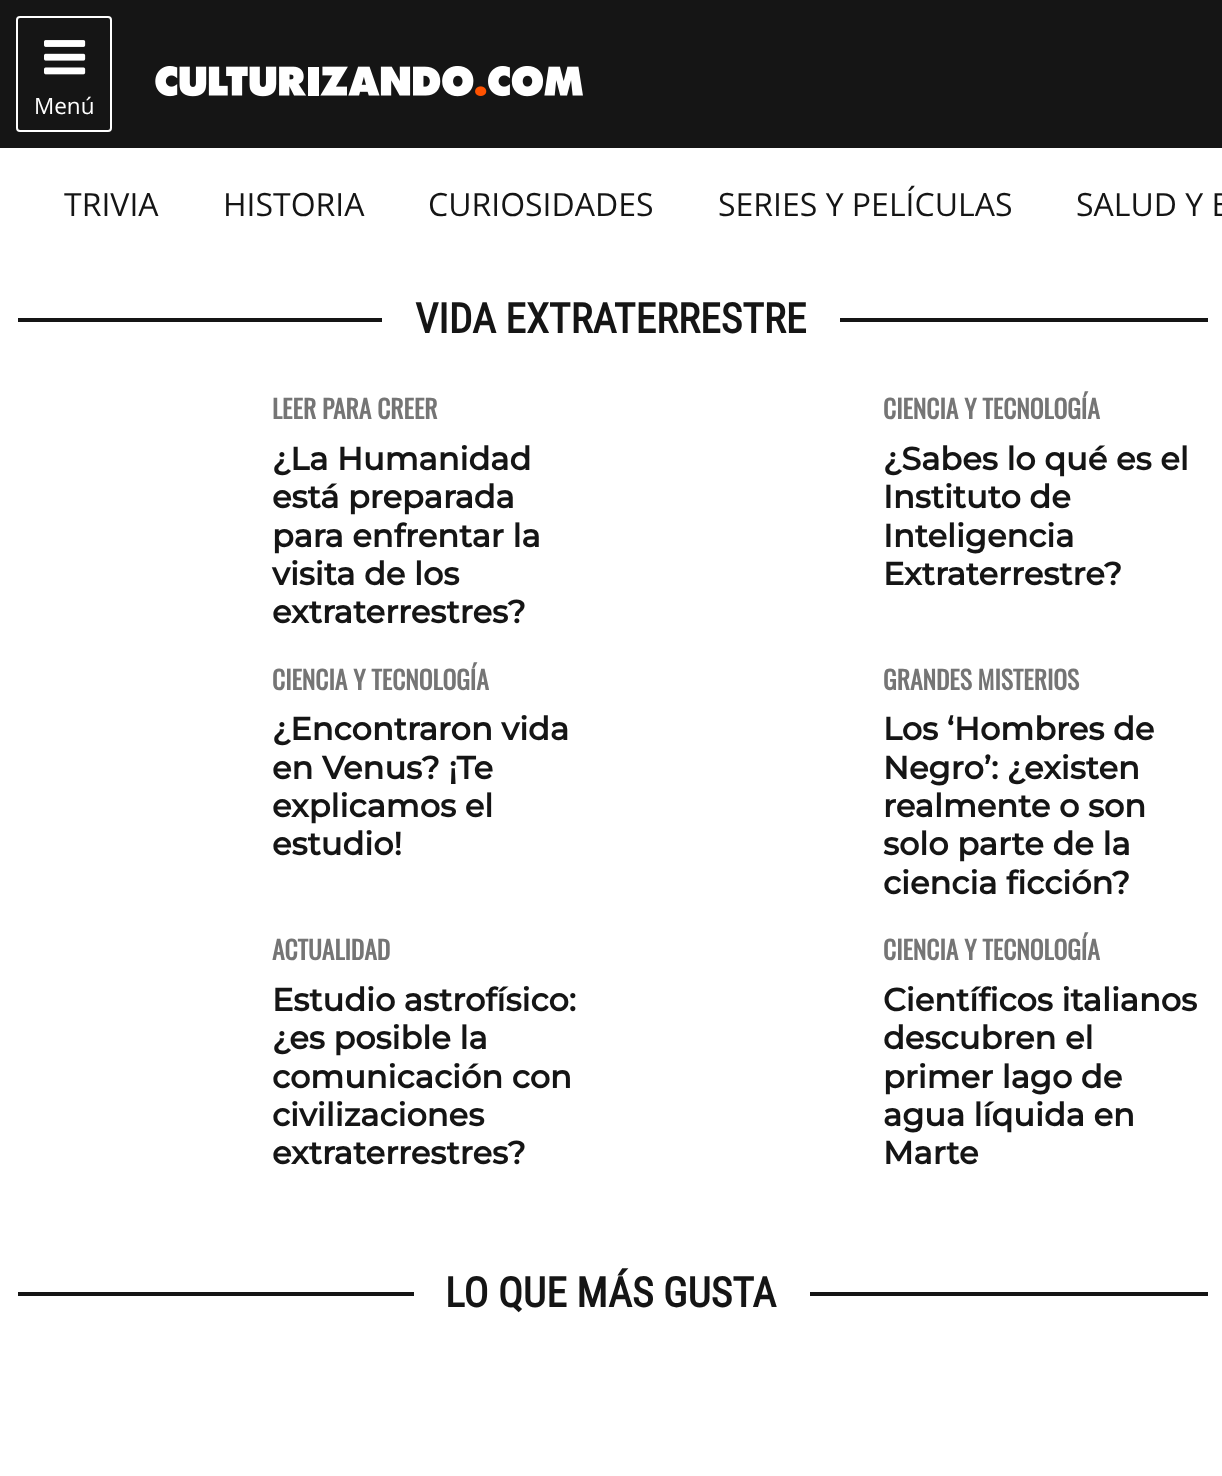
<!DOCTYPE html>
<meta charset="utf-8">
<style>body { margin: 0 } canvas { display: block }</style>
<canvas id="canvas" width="1222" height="1476"></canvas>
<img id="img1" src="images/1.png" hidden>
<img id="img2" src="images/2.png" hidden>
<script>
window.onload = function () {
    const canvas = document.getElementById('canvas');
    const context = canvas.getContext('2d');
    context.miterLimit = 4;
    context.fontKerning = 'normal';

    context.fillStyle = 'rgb(255, 255, 255)';
    context.fillRect(0, 0, 1222, 1476);
    context.fillStyle = 'rgb(21, 21, 21)';
    context.fillRect(0, 0, 1222, 148);
    context.drawImage(document.getElementById('img1'), 155, 66, 428, 31);
    context.beginPath();
    context.roundRect(17, 17, 94, 114, 3);
    context.strokeStyle = 'rgb(255, 255, 255)';
    context.lineWidth = 2;
    context.stroke();
    context.drawImage(document.getElementById('img2'), 44, 40, 42, 35);
    context.fillRect(18, 318, 1190, 4);
    context.fillStyle = 'rgb(255, 255, 255)';
    context.fillRect(382, 318, 458, 4);
    context.fillStyle = 'rgb(21, 21, 21)';
    context.fillRect(18, 1292, 1190, 4);
    context.fillStyle = 'rgb(255, 255, 255)';
    context.fillRect(414, 1292, 396, 4);
    context.font = '22.5px Open Sans';
    context.fillText('Menú', 34, 114);
    context.font = '32px Open Sans';
    context.fillStyle = 'rgb(21, 21, 21)';
    context.fillText('TRIVIA', 64, 216);
    context.fillText('HISTORIA', 223, 216);
    context.fillText('CURIOSIDADES', 428, 216);
    context.fillText('SERIES Y PELÍCULAS', 718, 216);
    context.fillText('SALUD Y B', 1076, 216);
    context.font = 'bold 41.5px Roboto Condensed';
    context.fillText('VIDA EXTRATERRESTRE', 415, 333);
    context.font = 'bold 25.5px Oswald';
    context.fillStyle = 'rgb(117, 117, 117)';
    context.fillText('LEER PARA CREER', 272, 419);
    context.font = 'bold 32px Montserrat';
    context.fillStyle = 'rgb(21, 21, 21)';
    context.fillText('¿La Humanidad', 272, 470);
    context.fillText('está preparada', 272, 508);
    context.fillText('para enfrentar la', 272, 547);
    context.fillText('visita de los', 272, 585);
    context.fillText('extraterrestres?', 272, 623);
    context.font = 'bold 25.5px Oswald';
    context.fillStyle = 'rgb(117, 117, 117)';
    context.fillText('CIENCIA Y TECNOLOGÍA', 883, 419);
    context.font = 'bold 32px Montserrat';
    context.fillStyle = 'rgb(21, 21, 21)';
    context.fillText('¿Sabes lo qué es el', 883, 470);
    context.fillText('Instituto de', 883, 508);
    context.fillText('Inteligencia', 883, 547);
    context.fillText('Extraterrestre?', 883, 585);
    context.font = 'bold 25.5px Oswald';
    context.fillStyle = 'rgb(117, 117, 117)';
    context.fillText('CIENCIA Y TECNOLOGÍA', 272, 690);
    context.font = 'bold 32px Montserrat';
    context.fillStyle = 'rgb(21, 21, 21)';
    context.fillText('¿Encontraron vida', 272, 740);
    context.fillText('en Venus? ¡Te', 272, 779);
    context.fillText('explicamos el', 272, 817);
    context.fillText('estudio!', 272, 855);
    context.font = 'bold 25.5px Oswald';
    context.fillStyle = 'rgb(117, 117, 117)';
    context.fillText('GRANDES MISTERIOS', 883, 690);
    context.font = 'bold 32px Montserrat';
    context.fillStyle = 'rgb(21, 21, 21)';
    context.fillText('Los ‘Hombres de', 883, 740);
    context.fillText('Negro’: ¿existen', 883, 779);
    context.fillText('realmente o son', 883, 817);
    context.fillText('solo parte de la', 883, 855);
    context.fillText('ciencia ficción?', 883, 894);
    context.font = 'bold 25.5px Oswald';
    context.fillStyle = 'rgb(117, 117, 117)';
    context.fillText('ACTUALIDAD', 272, 960);
    context.font = 'bold 32px Montserrat';
    context.fillStyle = 'rgb(21, 21, 21)';
    context.fillText('Estudio astrofísico:', 272, 1011);
    context.fillText('¿es posible la', 272, 1049);
    context.fillText('comunicación con', 272, 1088);
    context.fillText('civilizaciones', 272, 1126);
    context.fillText('extraterrestres?', 272, 1164);
    context.font = 'bold 25.5px Oswald';
    context.fillStyle = 'rgb(117, 117, 117)';
    context.fillText('CIENCIA Y TECNOLOGÍA', 883, 960);
    context.font = 'bold 32px Montserrat';
    context.fillStyle = 'rgb(21, 21, 21)';
    context.fillText('Científicos italianos', 883, 1011);
    context.fillText('descubren el', 883, 1049);
    context.fillText('primer lago de', 883, 1088);
    context.fillText('agua líquida en', 883, 1126);
    context.fillText('Marte', 883, 1164);
    context.font = 'bold 41.5px Roboto Condensed';
    context.fillText('LO QUE MÁS GUSTA', 445, 1307);
};
</script>
